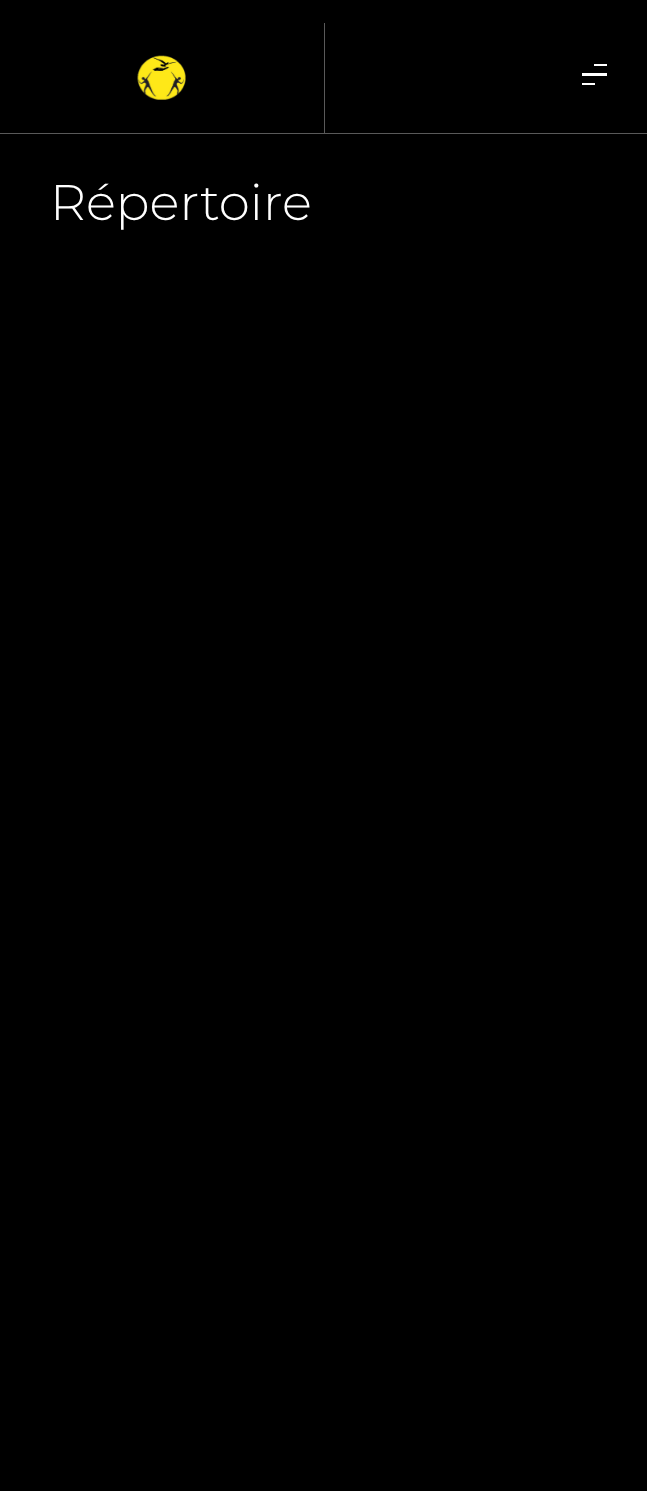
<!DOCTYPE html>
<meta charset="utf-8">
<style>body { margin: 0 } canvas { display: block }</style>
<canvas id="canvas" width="647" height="1491"></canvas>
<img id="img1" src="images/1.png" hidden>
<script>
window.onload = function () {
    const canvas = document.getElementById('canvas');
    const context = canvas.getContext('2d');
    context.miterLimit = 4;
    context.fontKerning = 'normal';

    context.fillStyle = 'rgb(0, 0, 0)';
    context.fillRect(0, 0, 647, 1491);
    context.fillStyle = 'rgb(89, 89, 89)';
    context.fillRect(0, 133, 647, 1);
    context.drawImage(document.getElementById('img1'), 137, 55, 49, 45);
    context.fillRect(324, 23, 1, 110);
    context.fillStyle = 'rgb(255, 255, 255)';
    context.fillRect(582, 83, 13, 2);
    context.fillRect(594, 64, 13, 2);
    context.fillRect(582, 73, 25, 3);
    context.font = '300 50px Montserrat';
    context.fillText('Répertoire', 50, 220);
};
</script>
